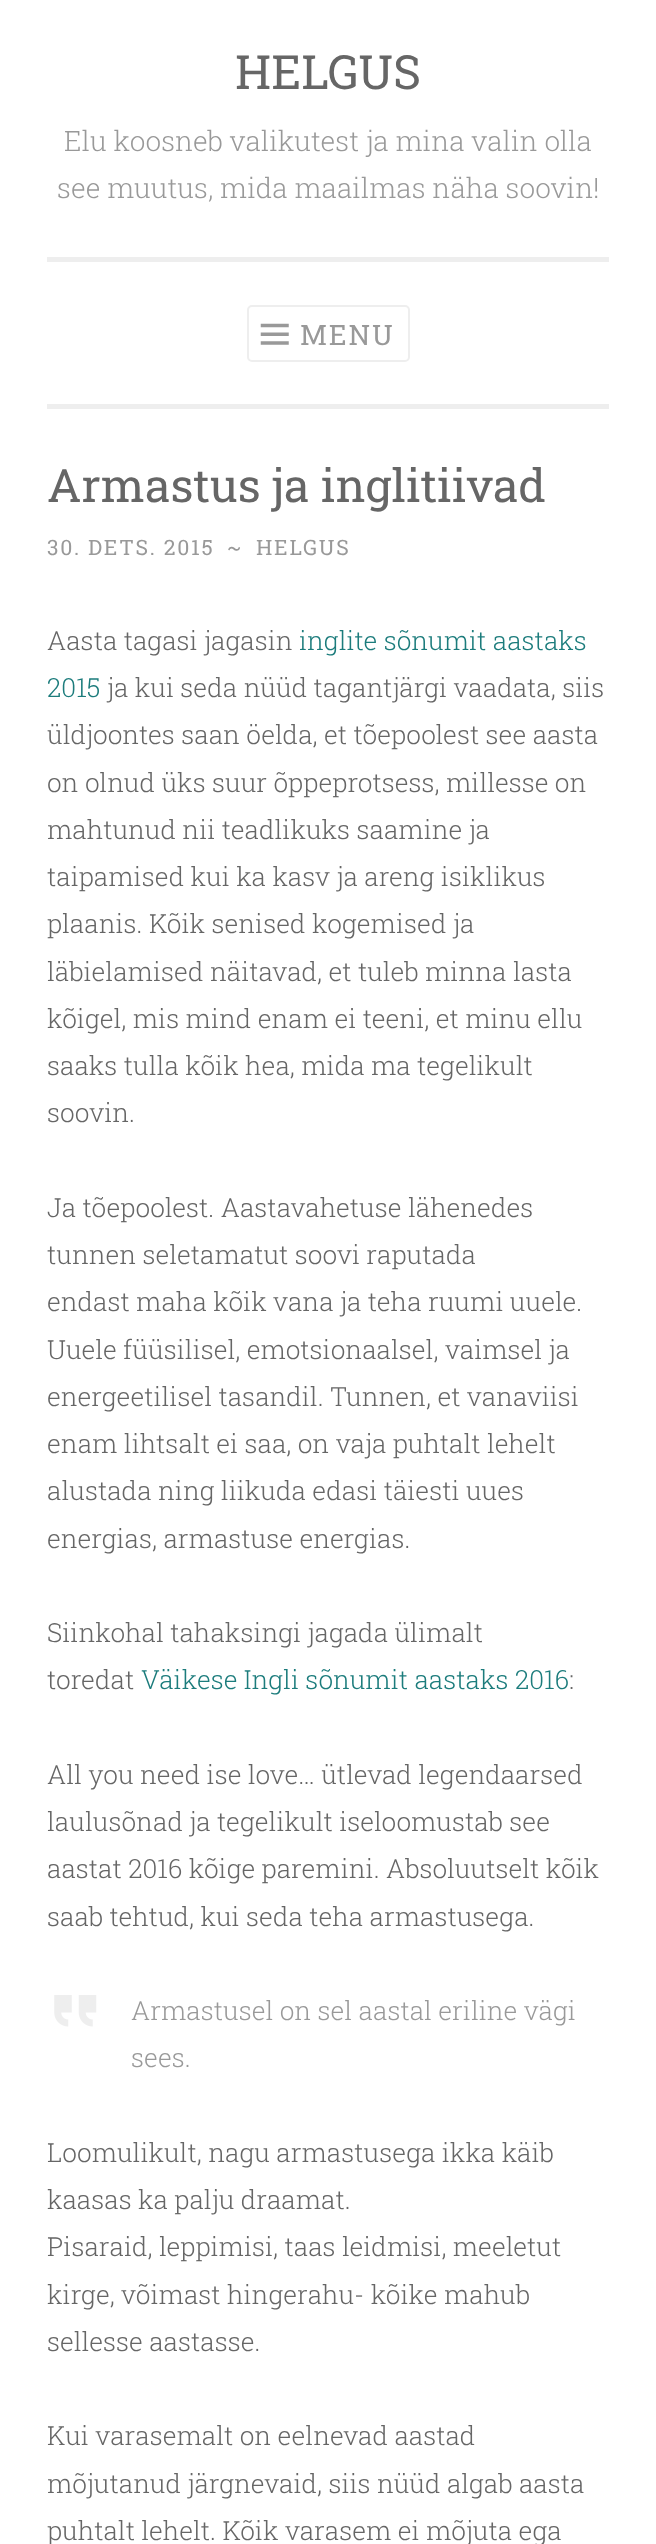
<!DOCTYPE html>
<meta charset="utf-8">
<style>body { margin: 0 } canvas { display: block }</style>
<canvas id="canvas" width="656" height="2544"></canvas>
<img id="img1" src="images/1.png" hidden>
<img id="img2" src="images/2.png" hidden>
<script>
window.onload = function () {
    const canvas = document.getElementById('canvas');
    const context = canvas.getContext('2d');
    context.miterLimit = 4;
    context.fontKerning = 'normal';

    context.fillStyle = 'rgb(255, 255, 255)';
    context.fillRect(0, 0, 656, 2544);
    context.fillStyle = 'rgb(238, 238, 238)';
    context.fillRect(47, 404, 562, 5);
    context.fillRect(47, 257, 562, 5);
    context.beginPath();
    context.roundRect(248, 306, 161, 55, 4);
    context.strokeStyle = 'rgb(238, 238, 238)';
    context.lineWidth = 2;
    context.stroke();
    context.drawImage(document.getElementById('img1'), 260, 323, 29, 22);
    context.drawImage(document.getElementById('img2'), 54, 1995, 43, 32);
    context.font = '47px Roboto Slab';
    context.fillStyle = 'rgb(102, 102, 102)';
    context.fillText('HELGUS', 235, 89);
    context.font = '300 28px Roboto Slab';
    context.fillStyle = 'rgb(153, 153, 153)';
    context.fillText('Elu koosneb valikutest ja mina valin olla', 64, 151);
    context.fillText('see muutus, mida maailmas näha soovin!', 57, 198);
    context.letterSpacing = '1.75px';
    context.font = '28px Roboto Slab';
    context.fillText('MENU', 300, 345);
    context.letterSpacing = '0px';
    context.font = '46px Roboto Slab';
    context.fillStyle = 'rgb(102, 102, 102)';
    context.fillText('Armastus ja inglitiivad', 47, 502);
    context.letterSpacing = '1.75px';
    context.font = '21.25px Roboto Slab';
    context.fillStyle = 'rgb(153, 153, 153)';
    context.fillText('30. DETS. 2015', 47, 555);
    context.fillText('~', 227, 555);
    context.fillText('HELGUS', 256, 555);
    context.letterSpacing = '0px';
    context.font = '300 26.25px Roboto Slab';
    context.fillStyle = 'rgb(102, 102, 102)';
    context.fillText('Aasta tagasi jagasin', 47, 650);
    context.fillStyle = 'rgb(28, 124, 124)';
    context.fillText('inglite sõnumit aastaks', 299, 650);
    context.fillText('2015', 47, 697);
    context.fillStyle = 'rgb(102, 102, 102)';
    context.fillText('ja kui seda nüüd tagantjärgi vaadata, siis', 107, 697);
    context.fillText('üldjoontes saan öelda, et tõepoolest see aasta', 47, 744);
    context.fillText('on olnud üks suur õppeprotsess, millesse on', 47, 792);
    context.fillText('mahtunud nii teadlikuks saamine ja', 47, 839);
    context.fillText('taipamised kui ka kasv ja areng isiklikus', 47, 886);
    context.fillText('plaanis. Kõik senised kogemised ja', 47, 933);
    context.fillText('läbielamised näitavad, et tuleb minna lasta', 47, 981);
    context.fillText('kõigel, mis mind enam ei teeni, et minu ellu', 47, 1028);
    context.fillText('saaks tulla kõik hea, mida ma tegelikult', 47, 1075);
    context.fillText('soovin.', 47, 1122);
    context.fillText('Ja tõepoolest. Aastavahetuse lähenedes', 47, 1217);
    context.fillText('tunnen seletamatut soovi raputada', 47, 1264);
    context.fillText('endast maha kõik vana ja teha ruumi uuele.', 47, 1311);
    context.fillText('Uuele füüsilisel, emotsionaalsel, vaimsel ja', 47, 1359);
    context.fillText('energeetilisel tasandil. Tunnen, et vanaviisi', 47, 1406);
    context.fillText('enam lihtsalt ei saa, on vaja puhtalt lehelt', 47, 1453);
    context.fillText('alustada ning liikuda edasi täiesti uues', 47, 1500);
    context.fillText('energias, armastuse energias.', 47, 1548);
    context.fillText('Siinkohal tahaksingi jagada ülimalt', 47, 1642);
    context.fillText('toredat', 47, 1689);
    context.fillStyle = 'rgb(28, 124, 124)';
    context.fillText('Väikese Ingli sõnumit aastaks 2016', 141, 1689);
    context.fillStyle = 'rgb(102, 102, 102)';
    context.fillText(':', 569, 1689);
    context.fillText('All you need ise love… ütlevad legendaarsed', 47, 1784);
    context.fillText('laulusõnad ja tegelikult iseloomustab see', 47, 1831);
    context.fillText('aastat 2016 kõige paremini. Absoluutselt kõik', 47, 1878);
    context.fillText('saab tehtud, kui seda teha armastusega.', 47, 1926);
    context.fillStyle = 'rgb(153, 153, 153)';
    context.fillText('Armastusel on sel aastal eriline vägi', 131, 2020);
    context.fillText('sees.', 131, 2067);
    context.fillStyle = 'rgb(102, 102, 102)';
    context.fillText('Loomulikult, nagu armastusega ikka käib', 47, 2162);
    context.fillText('kaasas ka palju draamat.', 47, 2209);
    context.fillText('Pisaraid, leppimisi, taas leidmisi, meeletut', 47, 2256);
    context.fillText('kirge, võimast hingerahu- kõike mahub', 47, 2304);
    context.fillText('sellesse aastasse.', 47, 2351);
    context.fillText('Kui varasemalt on eelnevad aastad', 47, 2445);
    context.fillText('mõjutanud järgnevaid, siis nüüd algab aasta', 47, 2493);
    context.fillText('puhtalt lehelt. Kõik varasem ei mõjuta ega', 47, 2540);
};
</script>
